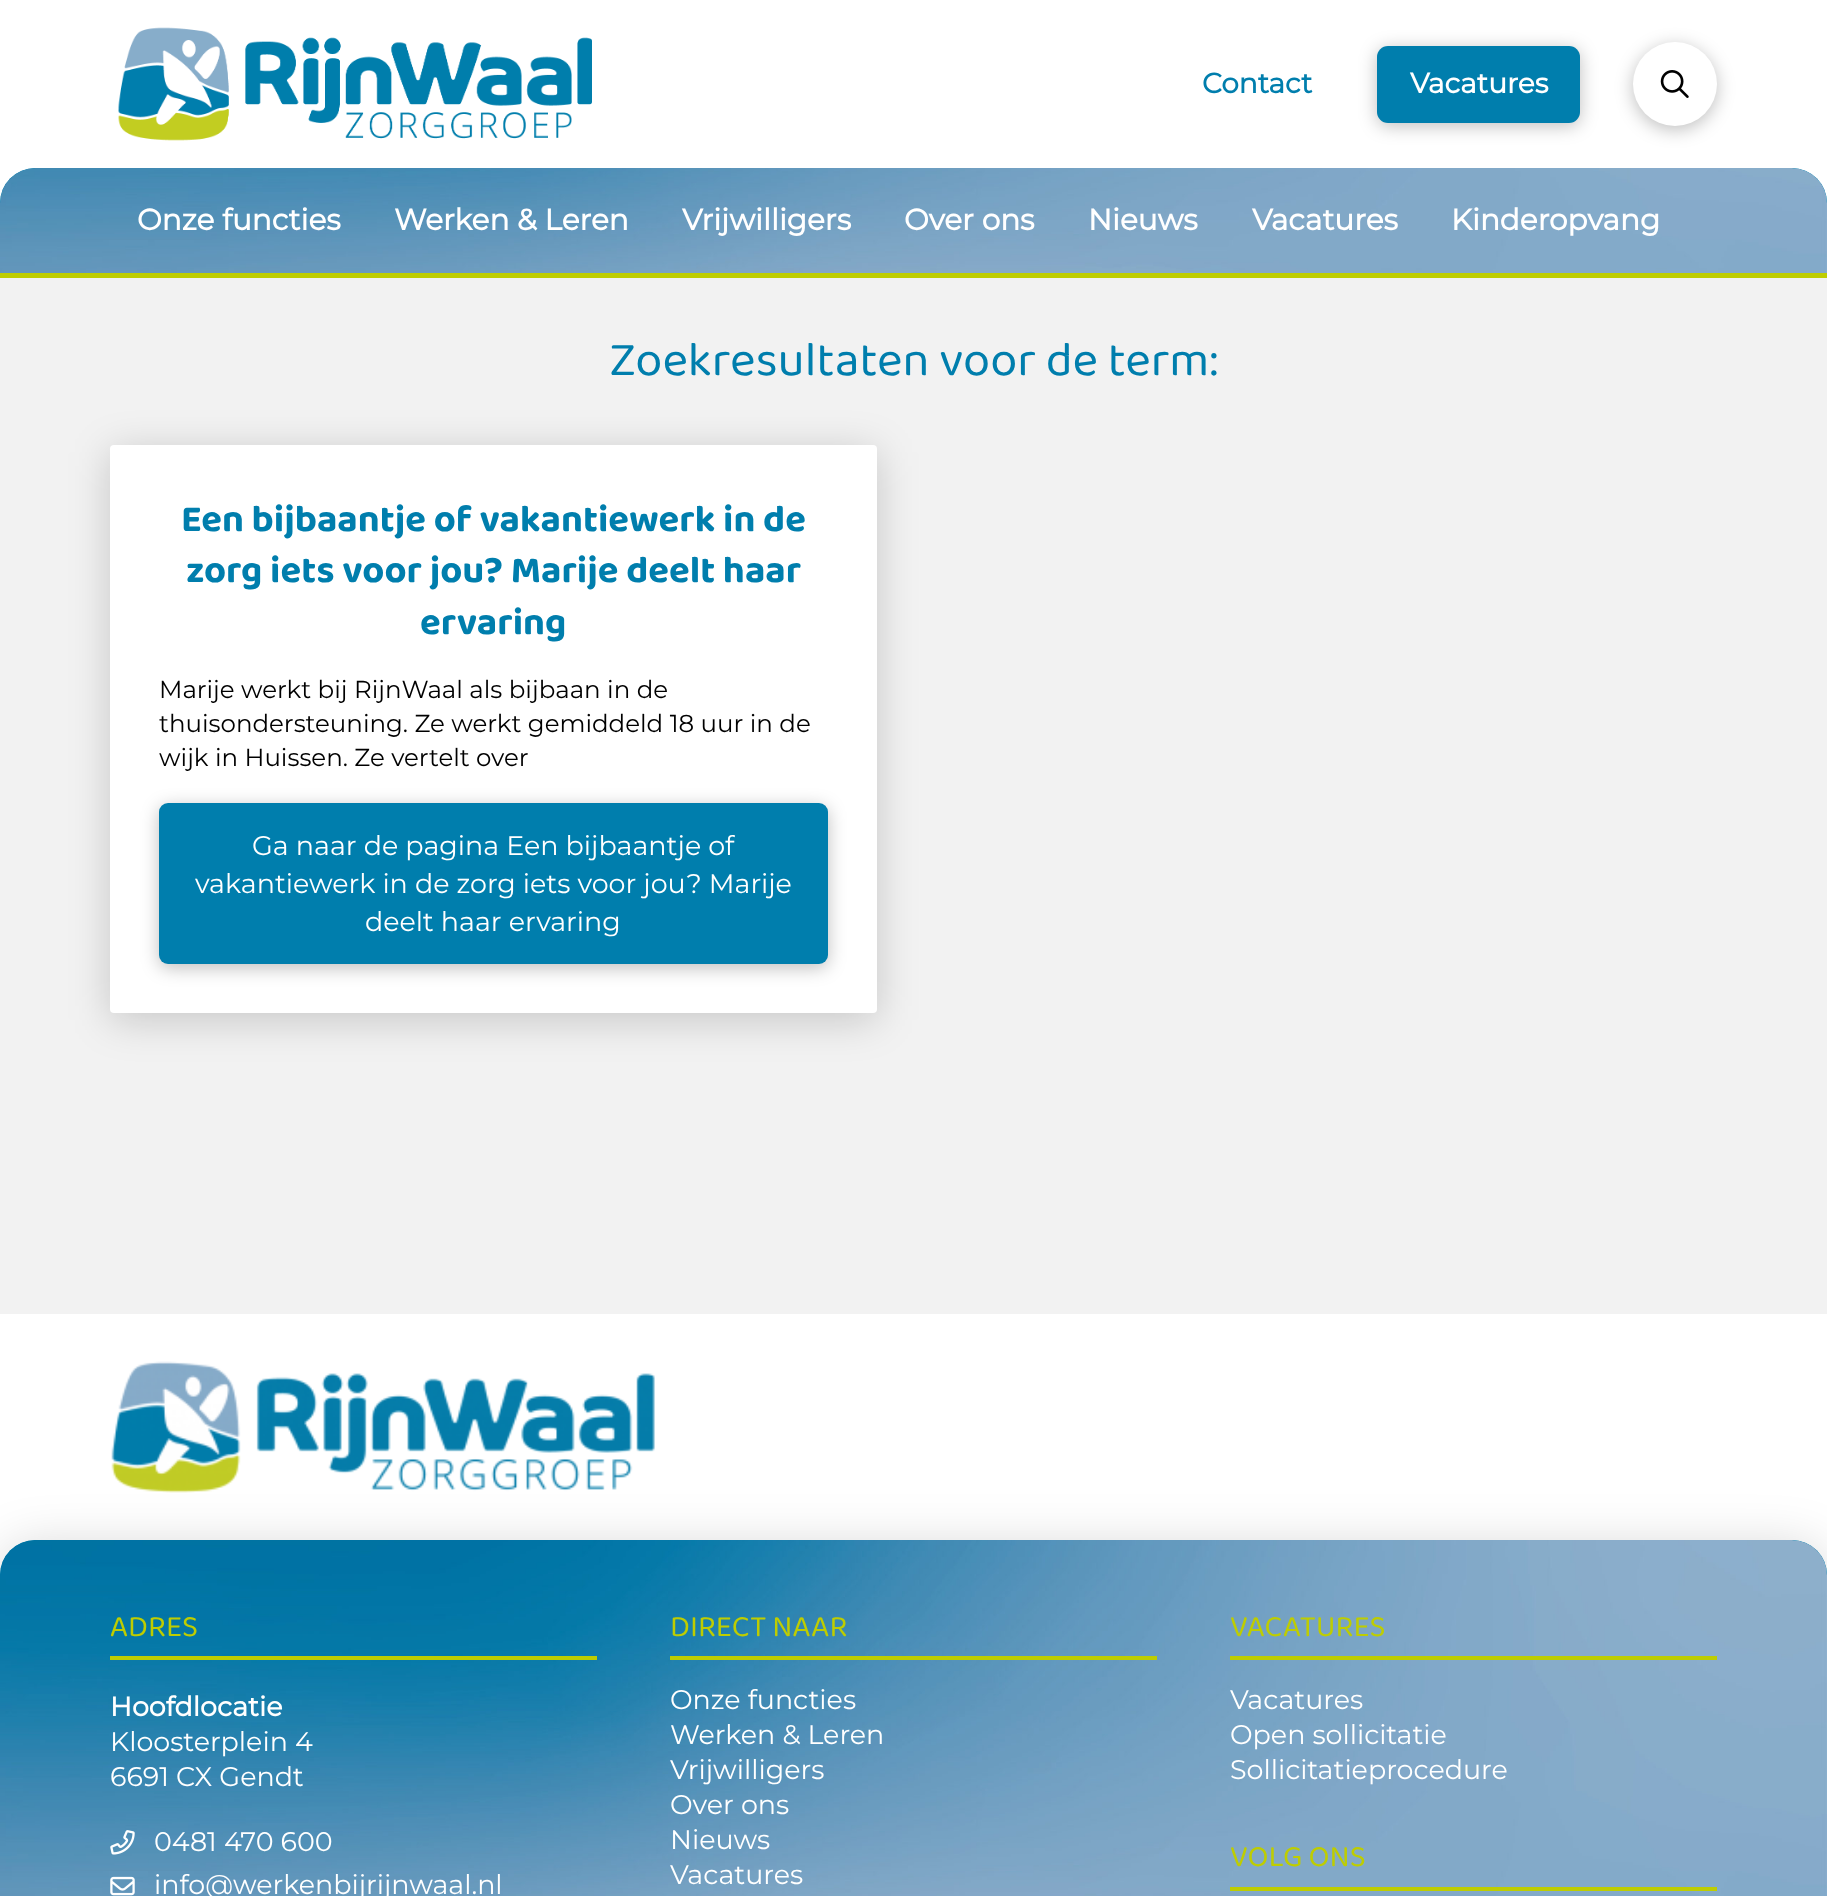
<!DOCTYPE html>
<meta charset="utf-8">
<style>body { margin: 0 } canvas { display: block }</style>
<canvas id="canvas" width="1827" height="1896"></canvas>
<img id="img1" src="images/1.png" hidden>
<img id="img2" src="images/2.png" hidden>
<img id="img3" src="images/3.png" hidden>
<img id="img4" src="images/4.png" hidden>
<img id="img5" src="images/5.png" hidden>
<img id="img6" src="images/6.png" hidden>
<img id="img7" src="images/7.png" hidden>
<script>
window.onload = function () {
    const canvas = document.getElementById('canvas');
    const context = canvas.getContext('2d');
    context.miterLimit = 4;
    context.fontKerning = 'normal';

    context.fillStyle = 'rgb(255, 255, 255)';
    context.fillRect(0, 0, 1827, 1896);
    context.drawImage(document.getElementById('img1'), 118, 27, 474, 114);
    context.fillStyle = 'rgba(0, 0, 0, 0.25)';
    context.filter = 'blur(9px)';
    context.beginPath();
    context.roundRect(1377, 49, 203, 77, 11);
    context.fill();
    context.filter = 'none';
    context.fillStyle = 'rgb(0, 126, 173)';
    context.beginPath();
    context.roundRect(1377, 46, 203, 77, 11);
    context.fill();
    context.fillStyle = 'rgba(0, 0, 0, 0.25)';
    context.filter = 'blur(9px)';
    context.beginPath();
    context.roundRect(1633, 46, 84, 84, 42);
    context.fill();
    context.filter = 'none';
    context.fillStyle = 'rgb(255, 255, 255)';
    context.beginPath();
    context.arc(1675, 84, 42, 0, 2 * Math.PI);
    context.fill();
    context.drawImage(document.getElementById('img2'), 1660, 70, 29, 28);
    context.fillStyle = 'rgb(0, 126, 173)';
    context.beginPath();
    context.roundRect(0, 168, 1827, 105, [35, 35, 0, 0]);
    context.fill();
    context.drawImage(document.getElementById('img3'), 0, 168, 1827, 105);
    context.fillStyle = 'rgb(190, 205, 1)';
    context.fillRect(0, 273, 1827, 5);
    context.fillStyle = 'rgb(242, 242, 242)';
    context.fillRect(0, 278, 1827, 1036);
    context.fillStyle = 'rgba(0, 0, 0, 0.18)';
    context.filter = 'blur(20px)';
    context.beginPath();
    context.roundRect(110, 452, 767, 568, 4);
    context.fill();
    context.filter = 'none';
    context.fillStyle = 'rgb(255, 255, 255)';
    context.beginPath();
    context.roundRect(110, 445, 767, 568, 4);
    context.fill();
    context.fillStyle = 'rgba(0, 0, 0, 0.25)';
    context.filter = 'blur(9px)';
    context.beginPath();
    context.roundRect(159, 807, 669, 161, 9);
    context.fill();
    context.filter = 'none';
    context.fillStyle = 'rgb(0, 126, 173)';
    context.beginPath();
    context.roundRect(159, 803, 669, 161, 9);
    context.fill();
    context.drawImage(document.getElementById('img4'), 111, 1361, 544, 132);
    context.fillStyle = 'rgba(0, 0, 0, 0.15)';
    context.filter = 'blur(24.5px)';
    context.beginPath();
    context.roundRect(0, 1544, 1827, 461, 35);
    context.fill();
    context.filter = 'none';
    context.fillStyle = 'rgb(0, 126, 173)';
    context.beginPath();
    context.roundRect(0, 1540, 1827, 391, 35);
    context.fill();
    context.drawImage(document.getElementById('img5'), 0, 1540, 1827, 356);
    context.fillStyle = 'rgb(190, 205, 1)';
    context.fillRect(110, 1656, 487, 4);
    context.drawImage(document.getElementById('img6'), 110, 1830, 25, 25);
    context.drawImage(document.getElementById('img7'), 110, 1876, 25, 20);
    context.fillRect(670, 1656, 487, 4);
    context.fillRect(1230, 1656, 487, 4);
    context.fillRect(1230, 1887, 487, 4);
    context.font = 'bold 28px Montserrat';
    context.fillStyle = 'rgb(0, 126, 173)';
    context.fillText('Contact', 1202, 93);
    context.fillStyle = 'rgb(255, 255, 255)';
    context.fillText('Vacatures', 1410, 93);
    context.font = 'bold 29.5px Montserrat';
    context.fillText('Onze functies', 137, 230);
    context.fillText('Werken & Leren', 394, 230);
    context.fillText('Vrijwilligers', 682, 230);
    context.fillText('Over ons', 904, 230);
    context.fillText('Nieuws', 1088, 230);
    context.fillText('Vacatures', 1252, 230);
    context.fillText('Kinderopvang', 1451, 230);
    context.font = '49px "Baloo 2"';
    context.fillStyle = 'rgb(0, 126, 173)';
    context.fillText('Zoekresultaten voor de term:', 609, 375);
    context.font = 'bold 38.25px "Baloo 2"';
    context.fillText('Een bijbaantje of vakantiewerk in de', 181, 531);
    context.fillText('zorg iets voor jou? Marije deelt haar', 186, 582);
    context.fillText('ervaring', 420, 634);
    context.font = '100 24.5px Montserrat';
    context.fillStyle = 'rgb(0, 0, 0)';
    context.fillText('Marije werkt bij RijnWaal als bijbaan in de', 159, 698);
    context.fillText('thuisondersteuning. Ze werkt gemiddeld 18 uur in de', 159, 732);
    context.fillText('wijk in Huissen. Ze vertelt over', 159, 766);
    context.font = '100 26.95px Montserrat';
    context.fillStyle = 'rgb(255, 255, 255)';
    context.fillText('Ga naar de pagina Een bijbaantje of', 252, 855);
    context.fillText('vakantiewerk in de zorg iets voor jou? Marije', 195, 893);
    context.fillText('deelt haar ervaring', 365, 931);
    context.font = '30.5px "Baloo 2"';
    context.fillStyle = 'rgb(190, 205, 1)';
    context.fillText('ADRES', 110, 1636);
    context.font = 'bold 26.95px Montserrat';
    context.fillStyle = 'rgb(255, 255, 255)';
    context.fillText('Hoofdlocatie', 110, 1716);
    context.font = '100 26.95px Montserrat';
    context.fillText('Kloosterplein 4', 110, 1751);
    context.fillText('6691 CX Gendt', 110, 1786);
    context.fillText('0481 470 600', 154, 1851);
    context.fillText('info@werkenbijrijnwaal.nl', 154, 1894);
    context.font = '30.5px "Baloo 2"';
    context.fillStyle = 'rgb(190, 205, 1)';
    context.fillText('DIRECT NAAR', 670, 1636);
    context.font = '100 26.95px Montserrat';
    context.fillStyle = 'rgb(255, 255, 255)';
    context.fillText('Onze functies', 670, 1709);
    context.fillText('Werken & Leren', 670, 1744);
    context.fillText('Vrijwilligers', 670, 1779);
    context.fillText('Over ons', 670, 1814);
    context.fillText('Nieuws', 670, 1849);
    context.fillText('Vacatures', 670, 1884);
    context.font = '30.5px "Baloo 2"';
    context.fillStyle = 'rgb(190, 205, 1)';
    context.fillText('VACATURES', 1230, 1636);
    context.font = '100 26.95px Montserrat';
    context.fillStyle = 'rgb(255, 255, 255)';
    context.fillText('Vacatures', 1230, 1709);
    context.fillText('Open sollicitatie', 1230, 1744);
    context.fillText('Sollicitatieprocedure', 1230, 1779);
    context.font = '30.5px "Baloo 2"';
    context.fillStyle = 'rgb(190, 205, 1)';
    context.fillText('VOLG ONS', 1230, 1866);
};
</script>
